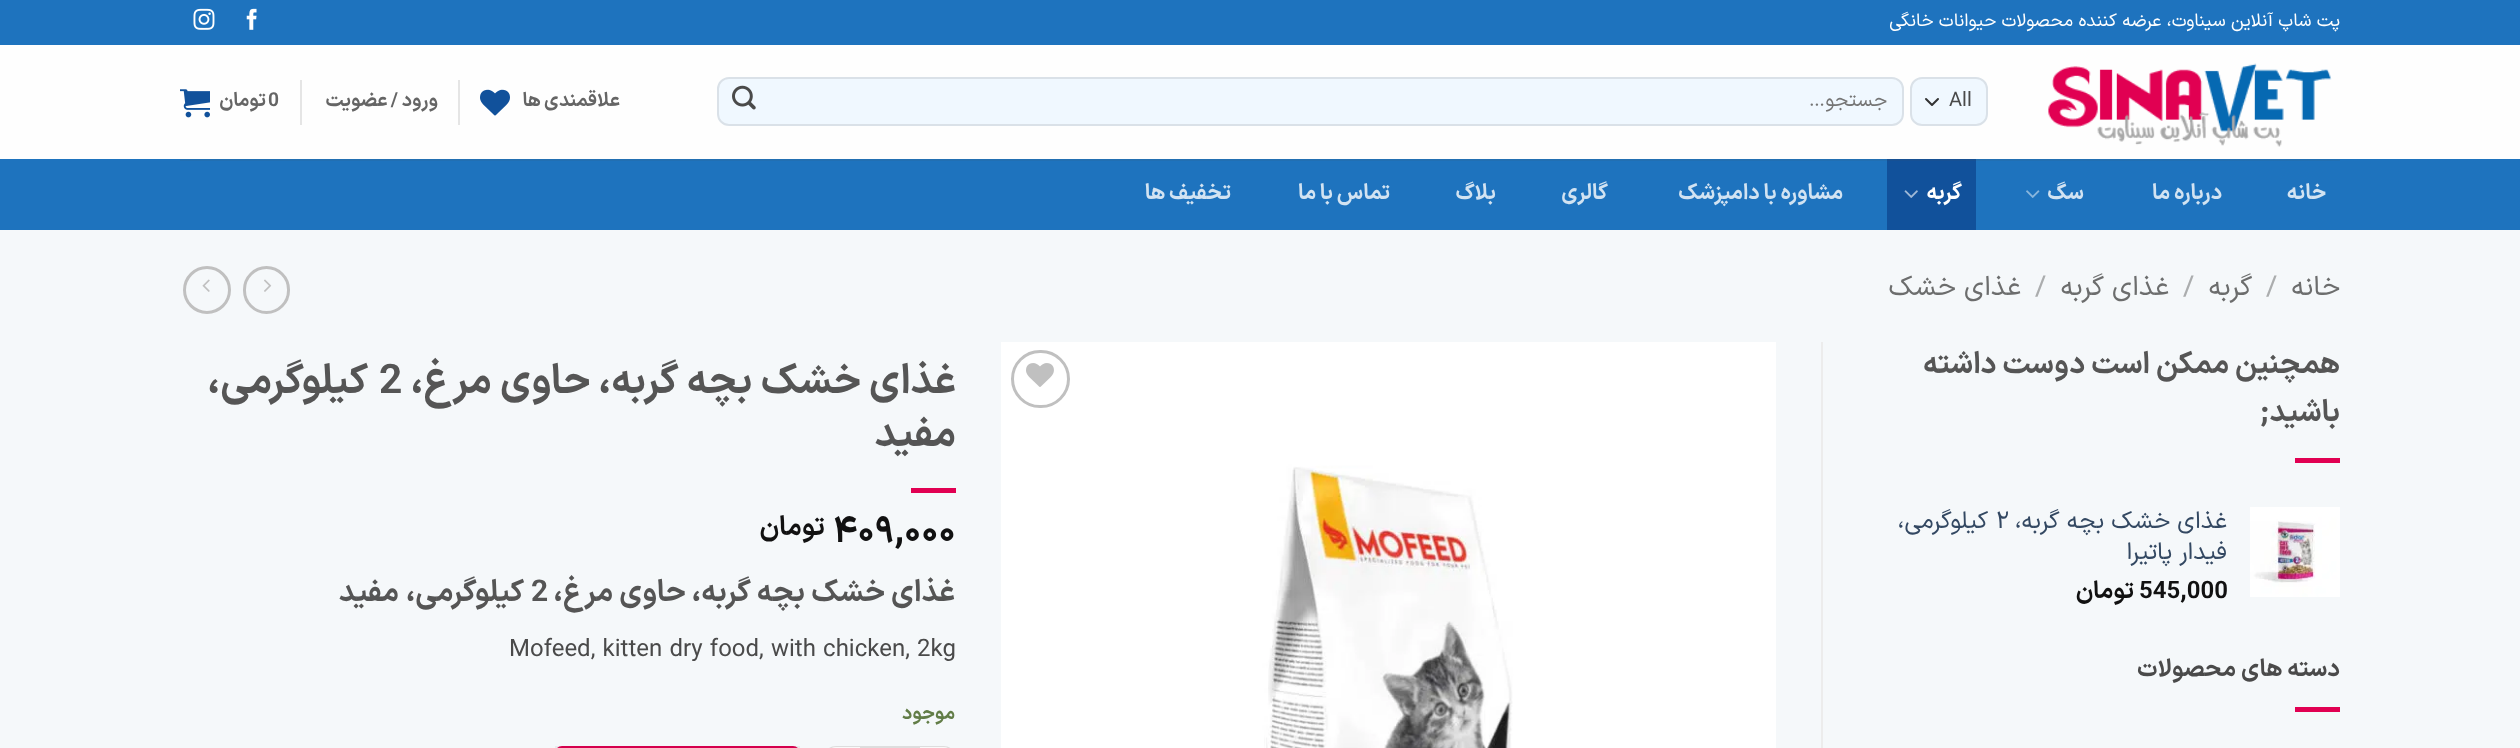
<!DOCTYPE html>
<meta charset="utf-8">
<style>body { margin: 0 } canvas { display: block }</style>
<canvas id="canvas" width="2520" height="748"></canvas>
<img id="img1" src="images/1.png" hidden>
<img id="img2" src="images/2.png" hidden>
<img id="img3" src="images/3.png" hidden>
<img id="img4" src="images/4.png" hidden>
<img id="img5" src="images/5.png" hidden>
<img id="img6" src="images/6.png" hidden>
<img id="img7" src="images/7.png" hidden>
<img id="img8" src="images/8.png" hidden>
<img id="img9" src="images/9.png" hidden>
<img id="img10" src="images/10.png" hidden>
<img id="img11" src="images/11.png" hidden>
<img id="img12" src="images/12.png" hidden>
<img id="img13" src="images/13.png" hidden>
<script>
window.onload = function () {
    const canvas = document.getElementById('canvas');
    const context = canvas.getContext('2d');
    context.miterLimit = 4;
    context.fontKerning = 'normal';

    context.fillStyle = 'rgb(245, 248, 250)';
    context.fillRect(0, 0, 2520, 748);
    context.fillStyle = 'rgb(30, 115, 190)';
    context.fillRect(0, 0, 2520, 45);
    context.drawImage(document.getElementById('img1'), 246, 8, 11, 22);
    context.drawImage(document.getElementById('img2'), 193, 8, 22, 22);
    context.fillStyle = 'rgb(254, 254, 254)';
    context.fillRect(0, 45, 2520, 114);
    context.drawImage(document.getElementById('img3'), 2048, 63, 284, 84);
    context.fillStyle = 'rgb(240, 248, 255)';
    context.beginPath();
    context.roundRect(1910, 77, 78, 49, 12);
    context.fill();
    context.beginPath();
    context.moveTo(1926, 99);
    context.lineTo(1932, 105);
    context.lineTo(1938, 99);
    context.strokeStyle = 'rgb(51, 51, 51)';
    context.lineWidth = 2;
    context.lineCap = 'round';
    context.lineJoin = 'round';
    context.stroke();
    context.beginPath();
    context.roundRect(1911, 78, 76, 47, 11);
    context.strokeStyle = 'rgba(0, 0, 0, 0.09)';
    context.lineJoin = 'miter';
    context.stroke();
    context.beginPath();
    context.roundRect(717, 77, 1187, 49, 12);
    context.fill();
    context.beginPath();
    context.roundRect(718, 78, 1185, 47, 11);
    context.stroke();
    context.drawImage(document.getElementById('img4'), 732, 85, 24, 25);
    context.drawImage(document.getElementById('img5'), 480, 89, 30, 27);
    context.fillStyle = 'rgb(229, 229, 229)';
    context.fillRect(458, 80, 2, 45);
    context.fillRect(300, 80, 2, 45);
    context.drawImage(document.getElementById('img6'), 180, 89, 30, 29);
    context.fillStyle = 'rgb(30, 115, 190)';
    context.fillRect(0, 159, 2520, 71);
    context.fillStyle = 'rgb(34, 111, 178)';
    context.fillRect(180, 159, 2160, 2);
    context.drawImage(document.getElementById('img7'), 2026, 190, 14, 8);
    context.fillStyle = 'rgb(17, 81, 155)';
    context.fillRect(1887, 161, 89, 69);
    context.fillStyle = 'rgb(23, 80, 147)';
    context.fillRect(1887, 159, 89, 2);
    context.drawImage(document.getElementById('img8'), 1904, 190, 14, 8);
    context.beginPath();
    context.roundRect(244.5, 267.5, 44, 45, 22);
    context.strokeStyle = 'rgb(192, 192, 192)';
    context.lineWidth = 3;
    context.stroke();
    context.drawImage(document.getElementById('img9'), 264, 279, 8, 13);
    context.beginPath();
    context.arc(207, 290, 22.5, 0, 2 * Math.PI);
    context.stroke();
    context.drawImage(document.getElementById('img10'), 202, 279, 8, 13);
    context.fillStyle = 'rgb(225, 0, 82)';
    context.fillRect(2295, 458, 45, 5);
    context.drawImage(document.getElementById('img11'), 2250, 507, 90, 90);
    context.fillRect(2295, 707, 45, 5);
    context.fillStyle = 'rgb(236, 236, 236)';
    context.fillRect(1821, 342, 2, 406);
    context.drawImage(document.getElementById('img12'), 1001, 342, 775, 406);
    context.beginPath();
    context.roundRect(1012.5, 351.5, 56, 55, 27.5);
    context.stroke();
    context.drawImage(document.getElementById('img13'), 1026, 363, 28, 24);
    context.fillStyle = 'rgb(225, 0, 82)';
    context.fillRect(911, 488, 45, 5);
    context.fillStyle = 'rgb(249, 249, 249)';
    context.beginPath();
    context.moveTo(920, 746);
    context.lineTo(944, 746);
    context.bezierCurveTo(950.5, 746, 956, 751.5, 956, 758);
    context.lineTo(956, 748);
    context.bezierCurveTo(956, 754.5, 950.5, 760, 944, 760);
    context.lineTo(920, 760);
    context.closePath();
    context.fill();
    context.fillStyle = 'rgb(221, 221, 221)';
    context.beginPath();
    context.moveTo(920, 746);
    context.lineTo(944, 746);
    context.bezierCurveTo(950, 746, 956, 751, 956, 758);
    context.lineTo(956, 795);
    context.bezierCurveTo(956, 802, 950, 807, 944, 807);
    context.lineTo(920, 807);
    context.closePath();
    context.moveTo(920, 747);
    context.lineTo(944, 747);
    context.bezierCurveTo(949, 747, 954, 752, 954, 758);
    context.lineTo(954, 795);
    context.bezierCurveTo(954, 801, 949, 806, 944, 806);
    context.lineTo(920, 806);
    context.closePath();
    context.fill('evenodd');
    context.strokeStyle = 'rgb(221, 221, 221)';
    context.lineWidth = 2;
    context.strokeRect(861, 747, 58, 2);
    context.fillStyle = 'rgb(249, 249, 249)';
    context.beginPath();
    context.moveTo(836, 746);
    context.lineTo(860, 746);
    context.lineTo(860, 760);
    context.lineTo(836, 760);
    context.bezierCurveTo(829.5, 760, 824, 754.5, 824, 748);
    context.lineTo(824, 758);
    context.bezierCurveTo(824, 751.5, 829.5, 746, 836, 746);
    context.closePath();
    context.fill();
    context.fillStyle = 'rgb(221, 221, 221)';
    context.beginPath();
    context.moveTo(836, 746);
    context.lineTo(860, 746);
    context.lineTo(860, 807);
    context.lineTo(836, 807);
    context.bezierCurveTo(829, 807, 824, 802, 824, 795);
    context.lineTo(824, 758);
    context.bezierCurveTo(824, 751, 829, 746, 836, 746);
    context.closePath();
    context.moveTo(836, 747);
    context.lineTo(860, 747);
    context.lineTo(860, 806);
    context.lineTo(836, 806);
    context.bezierCurveTo(830, 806, 825, 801, 825, 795);
    context.lineTo(825, 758);
    context.bezierCurveTo(825, 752, 830, 747, 836, 747);
    context.closePath();
    context.fill('evenodd');
    context.fillStyle = 'rgb(225, 0, 82)';
    context.beginPath();
    context.roundRect(555, 746, 245, 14, 12);
    context.fill();
    context.strokeStyle = 'rgba(0, 0, 0, 0.05)';
    context.strokeRect(556, 747, 243, 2);
    context.direction = 'rtl';
    context.font = '18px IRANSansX';
    context.fillStyle = 'rgb(255, 255, 255)';
    context.fillText('پت شاپ آنلاین سیناوت، عرضه کننده محصولات حیوانات خانگی', 2340, 26);
    context.direction = 'ltr';
    context.font = '20px IRANSansX';
    context.fillStyle = 'rgb(74, 74, 74)';
    context.fillText('All', 1949, 106);
    context.direction = 'rtl';
    context.fillStyle = 'rgb(117, 117, 117)';
    context.fillText('جستجو…', 1887, 106);
    context.letterSpacing = '0.4px';
    context.wordSpacing = '-1px';
    context.font = 'bold 19.25px IRANSansX';
    context.fillStyle = 'rgb(101, 101, 101)';
    context.fillText('علاقمندی ها', 620, 106);
    context.fillText('ورود / عضویت', 438, 106);
    context.wordSpacing = '0px';
    context.direction = 'ltr';
    context.fillText('0', 268, 106);
    context.direction = 'rtl';
    context.fillText('تومان', 266, 106);
    context.font = 'bold 21.5px IRANSansX';
    context.fillStyle = 'rgb(210, 227, 242)';
    context.fillText('خانه', 2326, 199);
    context.wordSpacing = '-1px';
    context.fillText('درباره ما', 2222, 199);
    context.wordSpacing = '0px';
    context.fillText('سگ', 2084, 199);
    context.fillStyle = 'rgb(255, 255, 255)';
    context.fillText('گربه', 1962, 199);
    context.wordSpacing = '-1px';
    context.fillStyle = 'rgb(210, 227, 242)';
    context.fillText('مشاوره با دامپزشک', 1843, 199);
    context.wordSpacing = '0px';
    context.fillText('گالری', 1608, 199);
    context.fillText('بلاگ', 1496, 199);
    context.wordSpacing = '-1px';
    context.fillText('تماس با ما', 1390, 199);
    context.fillText('تخفیف ها', 1231, 199);
    context.letterSpacing = '0px';
    context.wordSpacing = '0px';
    context.font = '27.5px IRANSansX';
    context.fillStyle = 'rgb(108, 109, 109)';
    context.fillText('خانه', 2340, 295);
    context.direction = 'ltr';
    context.fillStyle = 'rgb(171, 173, 174)';
    context.fillText('/', 2266, 295);
    context.direction = 'rtl';
    context.fillStyle = 'rgb(108, 109, 109)';
    context.fillText('گربه', 2252, 295);
    context.direction = 'ltr';
    context.fillStyle = 'rgb(171, 173, 174)';
    context.fillText('/', 2183, 295);
    context.direction = 'rtl';
    context.fillStyle = 'rgb(108, 109, 109)';
    context.fillText('غذای گربه', 2169, 295);
    context.direction = 'ltr';
    context.fillStyle = 'rgb(171, 173, 174)';
    context.fillText('/', 2035, 295);
    context.direction = 'rtl';
    context.fillStyle = 'rgb(108, 109, 109)';
    context.fillText('غذای خشک', 2021, 295);
    context.font = 'bold 30px IRANSansX';
    context.fillStyle = 'rgb(85, 85, 85)';
    context.fillText('همچنین ممکن است دوست داشته', 2340, 373);
    context.fillText('باشید;', 2340, 421);
    context.font = '24px IRANSansX';
    context.fillStyle = 'rgb(51, 72, 98)';
    context.fillText('غذای خشک بچه گربه،', 2227, 528);
    context.direction = 'ltr';
    context.fillText('۲', 1996, 528);
    context.direction = 'rtl';
    context.fillText('کیلوگرمی،', 1988, 528);
    context.fillText('فیدار پاتیرا', 2227, 559);
    context.direction = 'ltr';
    context.font = 'bold 24px IRANSansX';
    context.fillStyle = 'rgb(17, 17, 17)';
    context.fillText('545,000', 2139, 598);
    context.direction = 'rtl';
    context.fillText('تومان', 2134, 598);
    context.fillStyle = 'rgb(74, 74, 74)';
    context.fillText('دسته های محصولات', 2340, 676);
    context.font = 'bold 40.75px IRANSansX';
    context.fillStyle = 'rgb(85, 85, 85)';
    context.fillText('غذای خشک بچه گربه، حاوی مرغ،', 956, 393);
    context.direction = 'ltr';
    context.fillText('2', 379, 393);
    context.direction = 'rtl';
    context.fillText('کیلوگرمی،', 368, 393);
    context.fillText('مفید', 956, 446);
    context.direction = 'ltr';
    context.font = 'bold 36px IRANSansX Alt';
    context.fillStyle = 'rgb(17, 17, 17)';
    context.fillText('409,000', 833, 542);
    context.direction = 'rtl';
    context.font = 'bold 27px IRANSansX';
    context.fillText('تومان', 825, 535);
    context.font = 'bold 30px IRANSansX';
    context.fillStyle = 'rgb(85, 85, 85)';
    context.fillText('غذای خشک بچه گربه، حاوی مرغ،', 955, 601);
    context.direction = 'ltr';
    context.fillText('2', 531, 601);
    context.wordSpacing = '1px';
    context.direction = 'rtl';
    context.fillText('کیلوگرمی، مفید', 524, 601);
    context.wordSpacing = '0px';
    context.direction = 'ltr';
    context.font = '24px IRANSansX';
    context.fillStyle = 'rgb(74, 74, 74)';
    context.fillText('Mofeed, kitten dry food, with chicken, 2kg', 509, 656);
    context.direction = 'rtl';
    context.font = 'bold 19.25px IRANSansX';
    context.fillStyle = 'rgb(98, 125, 71)';
    context.fillText('موجود', 955, 719);
};
</script>
